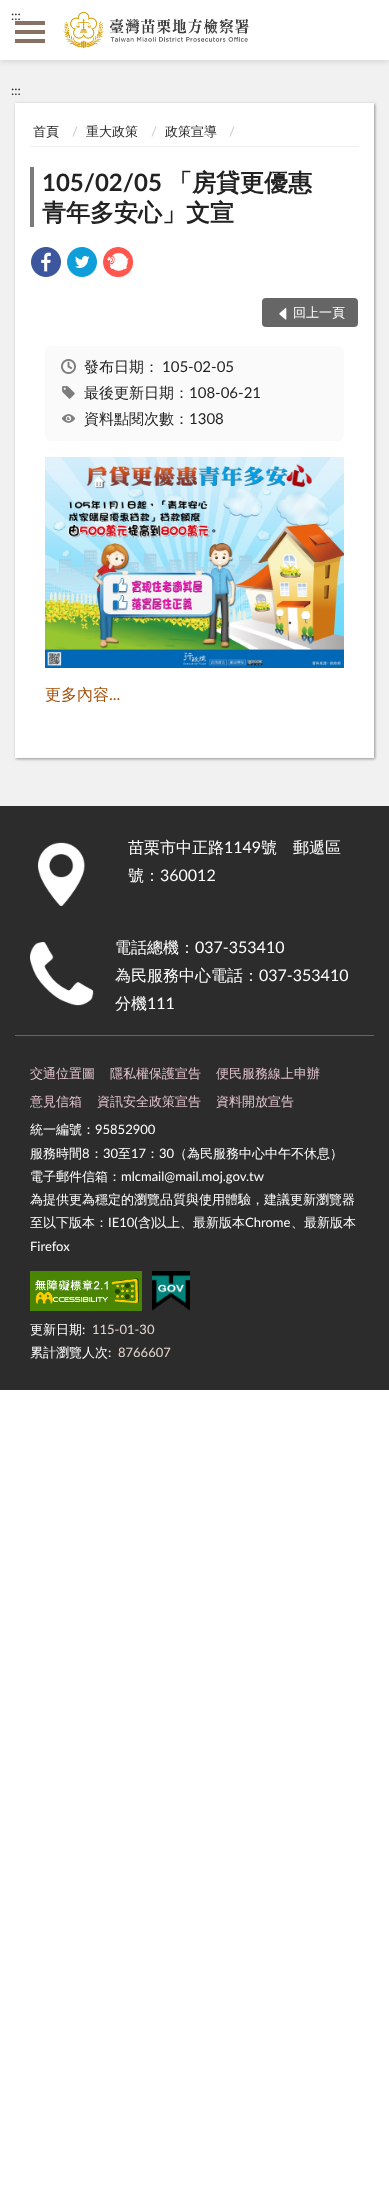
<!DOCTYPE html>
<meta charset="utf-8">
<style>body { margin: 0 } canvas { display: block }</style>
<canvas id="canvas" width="389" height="2200"></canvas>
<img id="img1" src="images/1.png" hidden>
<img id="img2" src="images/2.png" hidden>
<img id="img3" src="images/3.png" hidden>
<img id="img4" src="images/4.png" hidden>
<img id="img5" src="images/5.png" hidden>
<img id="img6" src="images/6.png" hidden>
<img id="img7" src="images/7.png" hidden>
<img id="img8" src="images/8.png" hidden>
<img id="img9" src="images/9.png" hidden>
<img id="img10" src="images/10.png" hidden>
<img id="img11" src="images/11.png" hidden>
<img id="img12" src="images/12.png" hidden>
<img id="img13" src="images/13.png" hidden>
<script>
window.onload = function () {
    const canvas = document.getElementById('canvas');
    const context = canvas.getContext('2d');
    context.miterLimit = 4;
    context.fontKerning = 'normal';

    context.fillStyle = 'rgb(255, 255, 255)';
    context.fillRect(0, 0, 389, 2200);
    context.fillStyle = 'rgb(241, 241, 241)';
    context.fillRect(0, 60, 389, 746);
    context.fillStyle = 'rgba(0, 0, 0, 0.1)';
    context.filter = 'blur(2.5px)';
    context.beginPath();
    context.rect(0, 2, 389, 60);
    context.fill();
    context.filter = 'none';
    context.fillStyle = 'rgb(255, 255, 255)';
    context.fillRect(0, 0, 389, 60);
    context.drawImage(document.getElementById('img1'), 63, 11, 186, 38);
    context.fillStyle = 'rgb(136, 113, 99)';
    context.fillRect(15, 21, 30, 4);
    context.fillRect(15, 30, 30, 4);
    context.fillRect(15, 39, 30, 4);
    context.fillStyle = 'rgba(0, 0, 0, 0.4)';
    context.filter = 'blur(1.5px)';
    context.beginPath();
    context.rect(16, 104, 359, 655);
    context.fill();
    context.filter = 'none';
    context.fillStyle = 'rgb(255, 255, 255)';
    context.fillRect(15, 103, 359, 655);
    context.fillStyle = 'rgb(238, 238, 238)';
    context.fillRect(30, 146, 329, 1);
    context.fillStyle = 'rgb(124, 122, 122)';
    context.fillRect(30, 167, 4, 60);
    context.drawImage(document.getElementById('img2'), 31, 247, 30, 30);
    context.drawImage(document.getElementById('img3'), 67, 247, 30, 30);
    context.drawImage(document.getElementById('img4'), 103, 247, 30, 30);
    context.fillStyle = 'rgb(102, 102, 102)';
    context.beginPath();
    context.roundRect(262, 298, 96, 29, 4);
    context.fill();
    context.drawImage(document.getElementById('img5'), 279, 308, 8, 12);
    context.fillStyle = 'rgb(250, 250, 250)';
    context.beginPath();
    context.roundRect(45, 346, 299, 95, 6);
    context.fill();
    context.drawImage(document.getElementById('img6'), 61, 359, 15, 15);
    context.drawImage(document.getElementById('img7'), 62, 386, 13, 13);
    context.drawImage(document.getElementById('img8'), 62, 414, 13, 9);
    context.drawImage(document.getElementById('img9'), 45, 457, 299, 211);
    context.fillStyle = 'rgb(45, 44, 44)';
    context.fillRect(0, 806, 389, 584);
    context.drawImage(document.getElementById('img10'), 38, 842, 47, 64);
    context.drawImage(document.getElementById('img11'), 30, 942, 64, 64);
    context.fillStyle = 'rgb(102, 102, 102)';
    context.fillRect(15, 1035, 359, 1);
    context.drawImage(document.getElementById('img12'), 30, 1271, 112, 40);
    context.drawImage(document.getElementById('img13'), 152, 1271, 38, 40);
    context.font = '13px Lato';
    context.fillStyle = 'rgb(34, 34, 34)';
    context.fillText(':::', 11, 20);
    context.fillText(':::', 11, 95);
    context.font = '500 13px WenQuanYi Zen Hei';
    context.fillText('首頁', 33, 136);
    context.font = '13px Lato';
    context.fillStyle = 'rgb(204, 204, 204)';
    context.fillText('/', 72, 136);
    context.font = '500 13px WenQuanYi Zen Hei';
    context.fillStyle = 'rgb(34, 34, 34)';
    context.fillText('重大政策', 86, 136);
    context.font = '13px Lato';
    context.fillStyle = 'rgb(204, 204, 204)';
    context.fillText('/', 151, 136);
    context.font = '500 13px WenQuanYi Zen Hei';
    context.fillStyle = 'rgb(34, 34, 34)';
    context.fillText('政策宣導', 165, 136);
    context.font = '13px Lato';
    context.fillStyle = 'rgb(204, 204, 204)';
    context.fillText('/', 229, 136);
    context.font = 'bold 24px Lato';
    context.fillStyle = 'rgb(34, 34, 34)';
    context.fillText('105/02/05', 42, 191);
    context.font = 'bold 24px WenQuanYi Zen Hei';
    context.fillText('「房貸更優惠', 168, 191);
    context.fillText('青年多安心」文宣', 42, 221);
    context.font = '500 13px WenQuanYi Zen Hei';
    context.fillStyle = 'rgb(255, 255, 255)';
    context.fillText('回上一頁', 293, 317);
    context.font = '500 15px WenQuanYi Zen Hei';
    context.fillStyle = 'rgb(34, 34, 34)';
    context.fillText('發布日期：', 84, 372);
    context.font = '15px Lato';
    context.fillText('105-02-05', 162, 372);
    context.font = '500 15px WenQuanYi Zen Hei';
    context.fillText('最後更新日期：', 84, 398);
    context.font = '15px Lato';
    context.fillText('108-06-21', 189, 398);
    context.font = '500 15px WenQuanYi Zen Hei';
    context.fillText('資料點閱次數：', 84, 424);
    context.font = '15px Lato';
    context.fillText('1308', 189, 424);
    context.font = '500 16px WenQuanYi Zen Hei';
    context.fillStyle = 'rgb(165, 79, 9)';
    context.fillText('更多內容', 45, 700);
    context.font = '16px Lato';
    context.fillText('...', 109, 700);
    context.font = '500 16px WenQuanYi Zen Hei';
    context.fillStyle = 'rgb(255, 255, 255)';
    context.fillText('苗栗市中正路', 128, 853);
    context.font = '16px Lato';
    context.fillText('1149', 224, 853);
    context.font = '500 16px WenQuanYi Zen Hei';
    context.fillText('號　郵遞區', 261, 853);
    context.fillText('號：', 128, 881);
    context.font = '16px Lato';
    context.fillText('360012', 160, 881);
    context.font = '500 16px WenQuanYi Zen Hei';
    context.fillText('電話總機：', 115, 953);
    context.font = '16px Lato';
    context.fillText('037-353410', 195, 953);
    context.font = '500 16px WenQuanYi Zen Hei';
    context.fillText('為民服務中心電話：', 115, 981);
    context.font = '16px Lato';
    context.fillText('037-353410', 259, 981);
    context.font = '500 16px WenQuanYi Zen Hei';
    context.fillText('分機', 115, 1009);
    context.font = '16px Lato';
    context.fillText('111', 147, 1009);
    context.font = '500 13px WenQuanYi Zen Hei';
    context.fillStyle = 'rgb(224, 194, 203)';
    context.fillText('交通位置圖', 30, 1078);
    context.fillText('隱私權保護宣告', 110, 1078);
    context.fillText('便民服務線上申辦', 216, 1078);
    context.fillText('意見信箱', 30, 1106);
    context.fillText('資訊安全政策宣告', 97, 1106);
    context.fillText('資料開放宣告', 216, 1106);
    context.fillStyle = 'rgb(255, 255, 255)';
    context.fillText('統一編號：', 30, 1134);
    context.font = '13px Lato';
    context.fillText('95852900', 95, 1134);
    context.font = '500 13px WenQuanYi Zen Hei';
    context.fillText('服務時間', 30, 1158);
    context.font = '13px Lato';
    context.fillText('8', 82, 1158);
    context.font = '500 13px WenQuanYi Zen Hei';
    context.fillText('：', 90, 1158);
    context.font = '13px Lato';
    context.fillText('30', 103, 1158);
    context.font = '500 13px WenQuanYi Zen Hei';
    context.fillText('至', 118, 1158);
    context.font = '13px Lato';
    context.fillText('17', 131, 1158);
    context.font = '500 13px WenQuanYi Zen Hei';
    context.fillText('：', 146, 1158);
    context.font = '13px Lato';
    context.fillText('30', 159, 1158);
    context.font = '500 13px WenQuanYi Zen Hei';
    context.fillText('（為民服務中心中午不休息）', 174, 1158);
    context.fillText('電子郵件信箱：', 30, 1181);
    context.font = '13px Lato';
    context.fillText('mlcmail@mail.moj.gov.tw', 121, 1181);
    context.font = '500 13px WenQuanYi Zen Hei';
    context.fillText('為提供更為穩定的瀏覽品質與使用體驗，建議更新瀏覽器', 30, 1204);
    context.fillText('至以下版本：', 30, 1227);
    context.font = '13px Lato';
    context.fillText('IE10(', 108, 1227);
    context.font = '500 13px WenQuanYi Zen Hei';
    context.fillText('含', 138, 1227);
    context.font = '13px Lato';
    context.fillText(')', 151, 1227);
    context.font = '500 13px WenQuanYi Zen Hei';
    context.fillText('以上、最新版本', 154, 1227);
    context.font = '13px Lato';
    context.fillText('Chrome', 245, 1227);
    context.font = '500 13px WenQuanYi Zen Hei';
    context.fillText('、最新版本', 291, 1227);
    context.font = '13px Lato';
    context.fillText('Firefox', 30, 1251);
    context.font = '500 13px WenQuanYi Zen Hei';
    context.fillText('更新日期', 30, 1334);
    context.font = '13px Lato';
    context.fillText(':', 82, 1334);
    context.fillStyle = 'rgb(227, 214, 207)';
    context.fillText('115-01-30', 92, 1334);
    context.font = '500 13px WenQuanYi Zen Hei';
    context.fillStyle = 'rgb(255, 255, 255)';
    context.fillText('累計瀏覽人次', 30, 1357);
    context.font = '13px Lato';
    context.fillText(':', 108, 1357);
    context.fillStyle = 'rgb(227, 214, 207)';
    context.fillText('8766607', 118, 1357);
};
</script>
